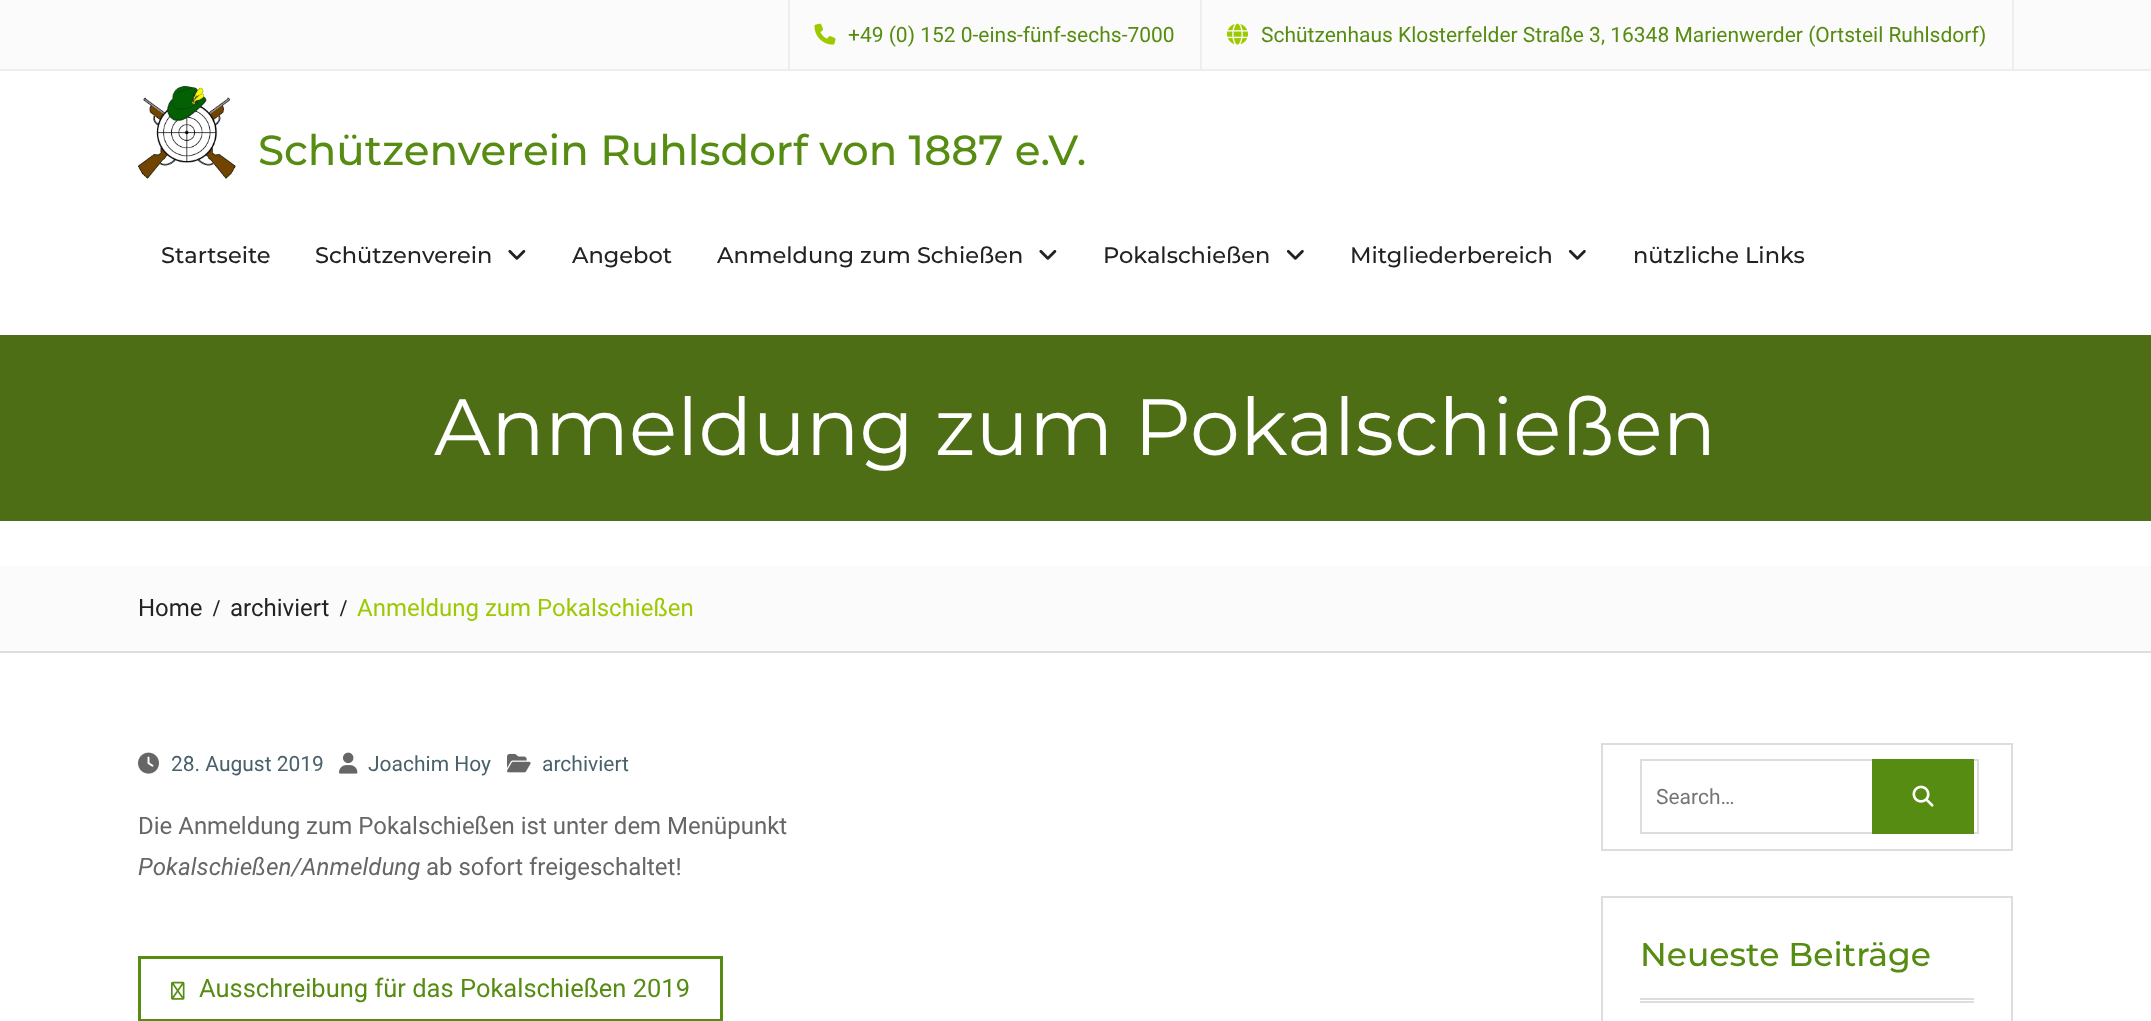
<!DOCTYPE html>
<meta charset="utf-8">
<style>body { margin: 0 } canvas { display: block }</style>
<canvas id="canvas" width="2151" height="1021"></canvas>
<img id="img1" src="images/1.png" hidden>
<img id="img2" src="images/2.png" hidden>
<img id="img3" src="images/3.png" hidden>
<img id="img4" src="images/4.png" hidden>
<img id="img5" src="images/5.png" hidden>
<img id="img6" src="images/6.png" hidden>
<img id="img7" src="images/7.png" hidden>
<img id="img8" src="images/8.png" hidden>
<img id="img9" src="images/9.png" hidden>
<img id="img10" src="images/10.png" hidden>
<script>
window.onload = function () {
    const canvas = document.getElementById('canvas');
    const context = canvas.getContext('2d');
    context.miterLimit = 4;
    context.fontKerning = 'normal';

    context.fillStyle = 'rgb(255, 255, 255)';
    context.fillRect(0, 0, 2151, 1021);
    context.fillStyle = 'rgb(251, 251, 251)';
    context.fillRect(0, 0, 2151, 69);
    context.fillStyle = 'rgb(238, 238, 238)';
    context.fillRect(0, 69, 2151, 2);
    context.fillRect(1200, 0, 2, 69);
    context.fillRect(788, 0, 2, 69);
    context.drawImage(document.getElementById('img1'), 814, 23, 22, 22);
    context.fillRect(2012, 0, 2, 69);
    context.drawImage(document.getElementById('img2'), 1227, 23, 21, 22);
    context.drawImage(document.getElementById('img3'), 138, 85, 98, 94);
    context.drawImage(document.getElementById('img4'), 508, 249, 18, 11);
    context.drawImage(document.getElementById('img4'), 1039, 249, 18, 11);
    context.drawImage(document.getElementById('img5'), 1286, 249, 18, 11);
    context.drawImage(document.getElementById('img5'), 1568, 249, 18, 11);
    context.fillStyle = 'rgb(78, 110, 22)';
    context.fillRect(0, 335, 2151, 186);
    context.fillStyle = 'rgb(251, 251, 251)';
    context.fillRect(0, 566, 2151, 85);
    context.fillStyle = 'rgb(221, 221, 221)';
    context.fillRect(0, 651, 2151, 2);
    context.drawImage(document.getElementById('img6'), 138, 752, 21, 22);
    context.drawImage(document.getElementById('img7'), 339, 752, 19, 22);
    context.drawImage(document.getElementById('img8'), 507, 753, 24, 20);
    context.strokeStyle = 'rgb(86, 140, 17)';
    context.lineWidth = 3;
    context.strokeRect(139.5, 957.5, 582, 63);
    context.drawImage(document.getElementById('img9'), 171, 981, 14, 19);
    context.strokeStyle = 'rgb(221, 221, 221)';
    context.lineWidth = 2;
    context.strokeRect(1602, 744, 410, 106);
    context.strokeRect(1641, 760, 337, 73);
    context.fillStyle = 'rgb(86, 140, 17)';
    context.fillRect(1872, 759, 102, 75);
    context.drawImage(document.getElementById('img10'), 1912, 785, 22, 22);
    context.strokeRect(1602, 897, 410, 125);
    context.fillStyle = 'rgb(221, 221, 221)';
    context.fillRect(1640, 998, 334, 2);
    context.fillRect(1640, 1001, 334, 2);
    context.font = '21px Roboto';
    context.fillStyle = 'rgb(86, 140, 17)';
    context.fillText('+49 (0) 152 0-eins-fünf-sechs-7000', 848, 42);
    context.fillText('Schützenhaus Klosterfelder Straße 3, 16348 Marienwerder (Ortsteil Ruhlsdorf)', 1261, 42);
    context.font = '500 42px Montserrat';
    context.fillText('Schützenverein Ruhlsdorf von 1887 e.V.', 258, 165);
    context.font = '500 22.5px Montserrat';
    context.fillStyle = 'rgb(34, 34, 34)';
    context.fillText('Startseite', 161, 263);
    context.fillText('Schützenverein', 315, 263);
    context.fillText('Angebot', 572, 263);
    context.fillText('Anmeldung zum Schießen', 717, 263);
    context.fillText('Pokalschießen', 1103, 263);
    context.fillText('Mitgliederbereich', 1350, 263);
    context.fillText('nützliche Links', 1633, 263);
    context.font = '79.5px Montserrat';
    context.fillStyle = 'rgb(255, 255, 255)';
    context.fillText('Anmeldung zum Pokalschießen', 434, 455);
    context.font = '24px Roboto';
    context.fillStyle = 'rgb(34, 34, 34)';
    context.fillText('Home', 138, 616);
    context.font = 'bold 24px Liberation Serif';
    context.fillText('/', 213, 616);
    context.font = '24px Roboto';
    context.fillText('archiviert', 230, 616);
    context.font = 'bold 24px Liberation Serif';
    context.fillText('/', 340, 616);
    context.font = '24px Roboto';
    context.fillStyle = 'rgb(156, 201, 0)';
    context.fillText('Anmeldung zum Pokalschießen', 357, 616);
    context.font = '21px Roboto';
    context.fillStyle = 'rgb(73, 97, 107)';
    context.fillText('28. August 2019', 171, 771);
    context.fillText('Joachim Hoy', 368, 771);
    context.fillText('archiviert', 542, 771);
    context.font = '24px Roboto';
    context.fillStyle = 'rgb(102, 102, 102)';
    context.fillText('Die Anmeldung zum Pokalschießen ist unter dem Menüpunkt', 138, 834);
    context.font = 'italic 24px Roboto';
    context.fillText('Pokalschießen/Anmeldung', 138, 875);
    context.font = '24px Roboto';
    context.fillText('ab sofort freigeschaltet!', 426, 875);
    context.font = '25.5px Roboto';
    context.fillStyle = 'rgb(86, 140, 17)';
    context.fillText('Ausschreibung für das Pokalschießen 2019', 199, 997);
    context.font = '21px Roboto';
    context.fillStyle = 'rgb(117, 117, 117)';
    context.fillText('Search…', 1656, 804);
    context.font = '500 33px Montserrat';
    context.fillStyle = 'rgb(86, 140, 17)';
    context.fillText('Neueste Beiträge', 1640, 966);
};
</script>
